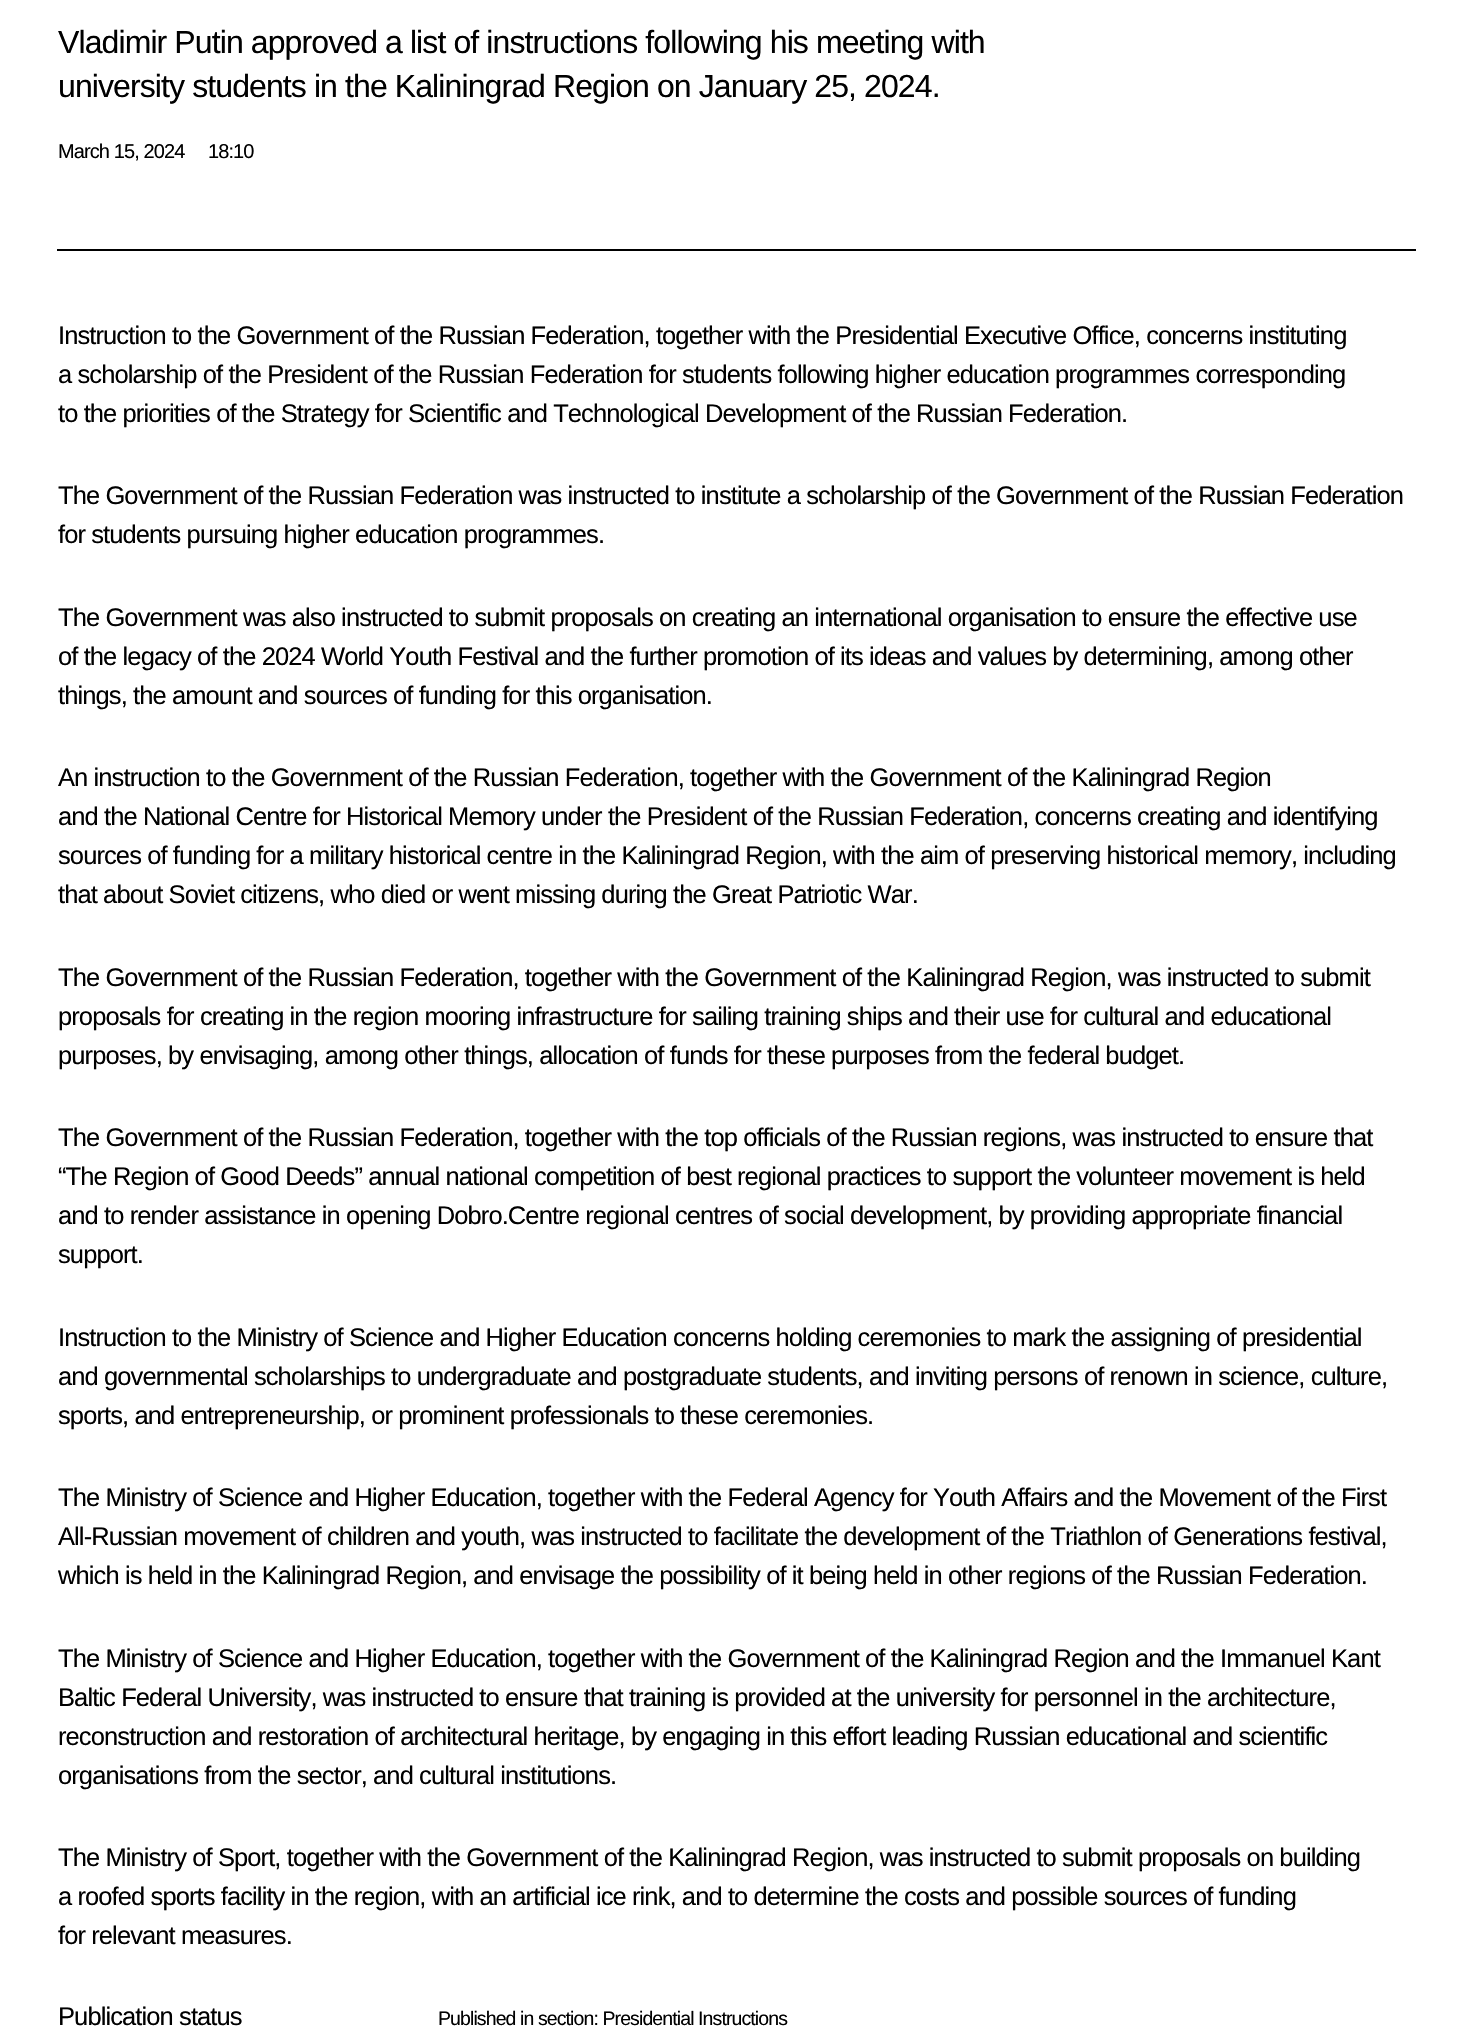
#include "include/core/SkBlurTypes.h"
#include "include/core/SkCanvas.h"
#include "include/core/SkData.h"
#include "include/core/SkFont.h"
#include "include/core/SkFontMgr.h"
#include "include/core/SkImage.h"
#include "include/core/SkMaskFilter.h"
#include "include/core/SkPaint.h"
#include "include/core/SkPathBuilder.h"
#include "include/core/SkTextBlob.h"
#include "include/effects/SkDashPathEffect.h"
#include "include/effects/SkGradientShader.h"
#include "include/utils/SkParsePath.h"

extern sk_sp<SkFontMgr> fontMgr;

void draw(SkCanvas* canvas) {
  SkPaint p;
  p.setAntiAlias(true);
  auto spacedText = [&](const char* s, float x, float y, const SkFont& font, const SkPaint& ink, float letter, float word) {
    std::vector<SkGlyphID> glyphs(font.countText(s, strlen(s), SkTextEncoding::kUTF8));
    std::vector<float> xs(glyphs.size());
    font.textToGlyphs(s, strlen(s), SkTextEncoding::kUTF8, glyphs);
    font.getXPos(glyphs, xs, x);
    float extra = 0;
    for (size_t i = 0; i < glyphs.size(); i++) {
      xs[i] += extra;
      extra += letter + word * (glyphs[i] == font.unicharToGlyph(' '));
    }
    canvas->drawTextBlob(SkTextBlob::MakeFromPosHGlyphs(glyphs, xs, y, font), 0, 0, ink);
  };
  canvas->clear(SK_ColorWHITE);
  p.setColor(SK_ColorBLACK);
  canvas->drawRect(SkRect::MakeLTRB(57, 249, 1416, 251), p);
  SkFont font1(fontMgr->matchFamilyStyle("Liberation Sans", SkFontStyle::Normal()), 32);
  font1.setSubpixel(true);
  spacedText("Vladimir Putin approved a list of instructions following his meeting with", 58, 53, font1, p, -0.9f, 0);
  spacedText("university students in the Kaliningrad Region on January 25, 2024.", 58, 97, font1, p, -0.9f, 0);
  SkFont font2(fontMgr->matchFamilyStyle("Liberation Sans", SkFontStyle::Normal()), 20);
  font2.setSubpixel(true);
  spacedText("March 15, 2024", 58, 158, font2, p, -0.9f, 0);
  spacedText("18:10", 208, 158, font2, p, -0.9f, 0);
  SkFont font3(fontMgr->matchFamilyStyle("Liberation Sans", SkFontStyle::Normal()), 25.5f);
  font3.setSubpixel(true);
  spacedText("Instruction to the Government of the Russian Federation, together with the Presidential Executive Office, concerns instituting", 58, 344, font3, p, -0.9f, 0);
  spacedText("a scholarship of the President of the Russian Federation for students following higher education programmes corresponding", 58, 383, font3, p, -0.9f, 0);
  spacedText("to the priorities of the Strategy for Scientific and Technological Development of the Russian Federation.", 58, 422, font3, p, -0.9f, 0);
  spacedText("The Government of the Russian Federation was instructed to institute a scholarship of the Government of the Russian Federation", 58, 504, font3, p, -0.9f, 0);
  spacedText("for students pursuing higher education programmes.", 58, 543, font3, p, -0.9f, 0);
  spacedText("The Government was also instructed to submit proposals on creating an international organisation to ensure the effective use", 58, 626, font3, p, -0.9f, 0);
  spacedText("of the legacy of the 2024 World Youth Festival and the further promotion of its ideas and values by determining, among other", 58, 665, font3, p, -0.9f, 0);
  spacedText("things, the amount and sources of funding for this organisation.", 58, 704, font3, p, -0.9f, 0);
  spacedText("An instruction to the Government of the Russian Federation, together with the Government of the Kaliningrad Region", 58, 786, font3, p, -0.9f, 0);
  spacedText("and the National Centre for Historical Memory under the President of the Russian Federation, concerns creating and identifying", 58, 825, font3, p, -0.9f, 0);
  spacedText("sources of funding for a military historical centre in the Kaliningrad Region, with the aim of preserving historical memory, including", 58, 864, font3, p, -0.9f, 0);
  spacedText("that about Soviet citizens, who died or went missing during the Great Patriotic War.", 58, 903, font3, p, -0.9f, 0);
  spacedText("The Government of the Russian Federation, together with the Government of the Kaliningrad Region, was instructed to submit", 58, 986, font3, p, -0.9f, 0);
  spacedText("proposals for creating in the region mooring infrastructure for sailing training ships and their use for cultural and educational", 58, 1025, font3, p, -0.9f, 0);
  spacedText("purposes, by envisaging, among other things, allocation of funds for these purposes from the federal budget.", 58, 1064, font3, p, -0.9f, 0);
  spacedText("The Government of the Russian Federation, together with the top officials of the Russian regions, was instructed to ensure that", 58, 1146, font3, p, -0.9f, 0);
  spacedText("“The Region of Good Deeds” annual national competition of best regional practices to support the volunteer movement is held", 58, 1185, font3, p, -0.9f, 0);
  spacedText("and to render assistance in opening Dobro.Centre regional centres of social development, by providing appropriate financial", 58, 1224, font3, p, -0.9f, 0);
  spacedText("support.", 58, 1263, font3, p, -0.9f, 0);
  spacedText("Instruction to the Ministry of Science and Higher Education concerns holding ceremonies to mark the assigning of presidential", 58, 1346, font3, p, -0.9f, 0);
  spacedText("and governmental scholarships to undergraduate and postgraduate students, and inviting persons of renown in science, culture,", 58, 1385, font3, p, -0.9f, 0);
  spacedText("sports, and entrepreneurship, or prominent professionals to these ceremonies.", 58, 1424, font3, p, -0.9f, 0);
  spacedText("The Ministry of Science and Higher Education, together with the Federal Agency for Youth Affairs and the Movement of the First", 58, 1506, font3, p, -0.9f, 0);
  spacedText("All-Russian movement of children and youth, was instructed to facilitate the development of the Triathlon of Generations festival,", 58, 1545, font3, p, -0.9f, 0);
  spacedText("which is held in the Kaliningrad Region, and envisage the possibility of it being held in other regions of the Russian Federation.", 58, 1584, font3, p, -0.9f, 0);
  spacedText("The Ministry of Science and Higher Education, together with the Government of the Kaliningrad Region and the Immanuel Kant", 58, 1667, font3, p, -0.9f, 0);
  spacedText("Baltic Federal University, was instructed to ensure that training is provided at the university for personnel in the architecture,", 58, 1706, font3, p, -0.9f, 0);
  spacedText("reconstruction and restoration of architectural heritage, by engaging in this effort leading Russian educational and scientific", 58, 1745, font3, p, -0.9f, 0);
  spacedText("organisations from the sector, and cultural institutions.", 58, 1784, font3, p, -0.9f, 0);
  spacedText("The Ministry of Sport, together with the Government of the Kaliningrad Region, was instructed to submit proposals on building", 58, 1866, font3, p, -0.9f, 0);
  spacedText("a roofed sports facility in the region, with an artificial ice rink, and to determine the costs and possible sources of funding", 58, 1905, font3, p, -0.9f, 0);
  spacedText("for relevant measures.", 58, 1944, font3, p, -0.9f, 0);
  spacedText("Publication status", 58, 2025, font3, p, -0.9f, 0);
  SkFont font4(fontMgr->matchFamilyStyle("Liberation Sans", SkFontStyle::Normal()), 19.5f);
  font4.setSubpixel(true);
  spacedText("Published in section: Presidential Instructions", 438, 2025, font4, p, -0.9f, 0);
}
